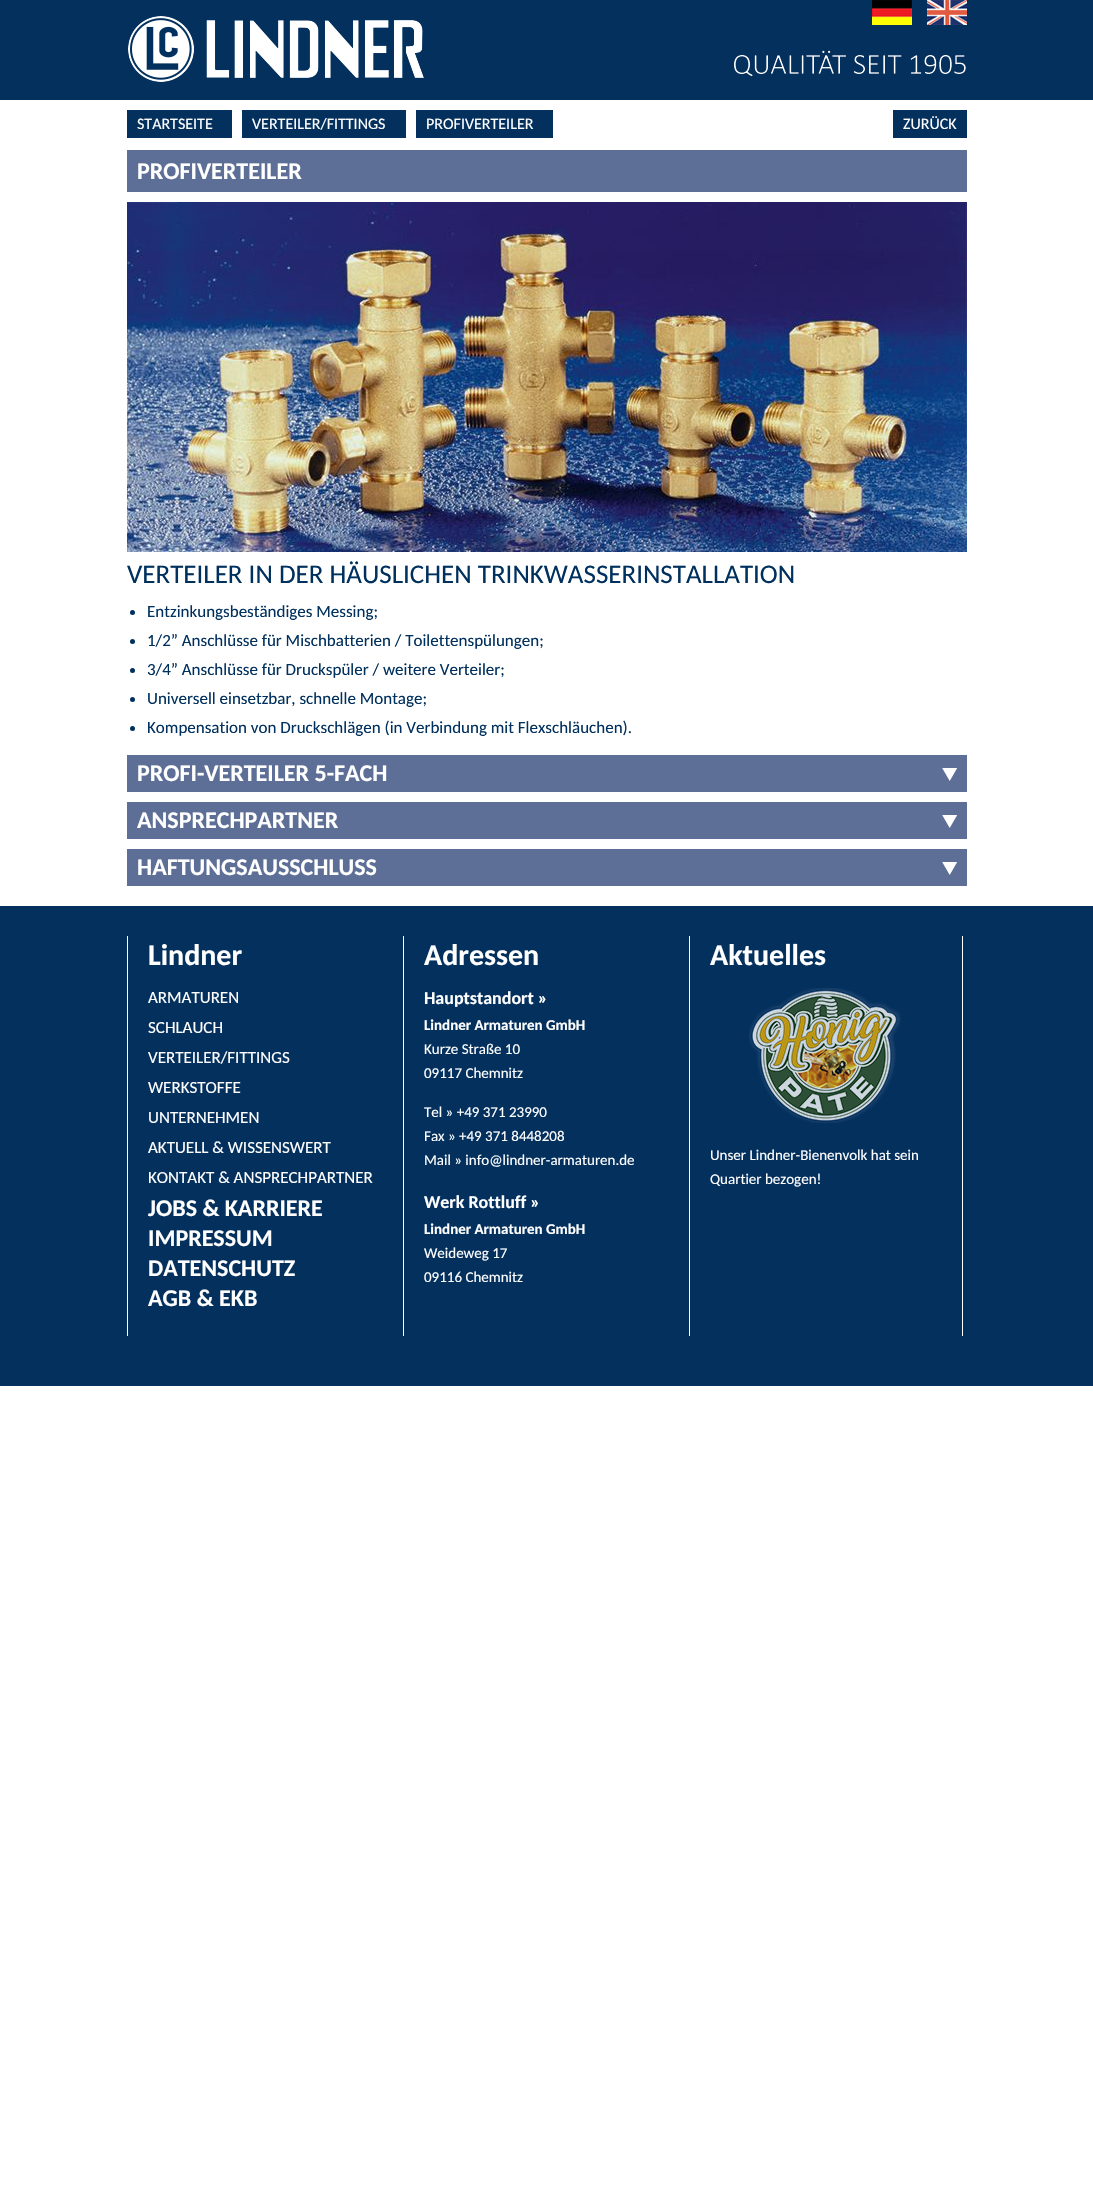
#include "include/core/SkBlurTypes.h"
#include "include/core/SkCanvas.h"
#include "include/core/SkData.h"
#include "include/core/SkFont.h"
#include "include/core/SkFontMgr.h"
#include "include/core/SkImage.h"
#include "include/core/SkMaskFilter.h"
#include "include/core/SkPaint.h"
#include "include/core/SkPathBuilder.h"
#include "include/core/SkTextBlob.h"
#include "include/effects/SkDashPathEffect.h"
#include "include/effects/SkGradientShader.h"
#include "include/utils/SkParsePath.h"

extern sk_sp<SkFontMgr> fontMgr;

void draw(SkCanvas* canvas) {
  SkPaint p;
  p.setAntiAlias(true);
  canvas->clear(SK_ColorWHITE);
  p.setColor(SkColorSetRGB(4, 48, 94));
  canvas->drawRect(SkRect::MakeLTRB(0, 0, 1093, 100), p);
  canvas->drawImageRect(SkImages::DeferredFromEncodedData(SkData::MakeFromFileName("images/1.png")), SkRect::MakeLTRB(872, 0, 912, 25), SkSamplingOptions());
  canvas->drawImageRect(SkImages::DeferredFromEncodedData(SkData::MakeFromFileName("images/2.png")), SkRect::MakeLTRB(927, 0, 967, 25), SkSamplingOptions());
  canvas->drawImageRect(SkImages::DeferredFromEncodedData(SkData::MakeFromFileName("images/3.png")), SkRect::MakeLTRB(128, 16, 424, 82), SkSamplingOptions());
  canvas->drawImageRect(SkImages::DeferredFromEncodedData(SkData::MakeFromFileName("images/4.png")), SkRect::MakeLTRB(734, 50, 966, 76), SkSamplingOptions());
  canvas->drawRect(SkRect::MakeLTRB(127, 110, 232, 138), p);
  canvas->drawRect(SkRect::MakeLTRB(242, 110, 406, 138), p);
  canvas->drawRect(SkRect::MakeLTRB(416, 110, 553, 138), p);
  canvas->drawRect(SkRect::MakeLTRB(893, 110, 967, 138), p);
  p.setColor(SkColorSetRGB(93, 111, 150));
  canvas->drawRect(SkRect::MakeLTRB(127, 150, 967, 192), p);
  canvas->drawImageRect(SkImages::DeferredFromEncodedData(SkData::MakeFromFileName("images/5.png")), SkRect::MakeLTRB(127, 202, 967, 552), SkSamplingOptions());
  p.setColor(SkColorSetRGB(0, 48, 93));
  canvas->drawCircle(132.5f, 612.5f, 2.5f, p);
  canvas->drawCircle(132.5f, 641.5f, 2.5f, p);
  canvas->drawCircle(132.5f, 670.5f, 2.5f, p);
  canvas->drawCircle(132.5f, 699.5f, 2.5f, p);
  canvas->drawCircle(132.5f, 728.5f, 2.5f, p);
  p.setColor(SkColorSetRGB(93, 111, 150));
  canvas->drawRect(SkRect::MakeLTRB(127, 755, 967, 792), p);
  canvas->drawImageRect(SkImages::DeferredFromEncodedData(SkData::MakeFromFileName("images/6.png")), SkRect::MakeLTRB(942, 768, 957, 781), SkSamplingOptions());
  canvas->drawRect(SkRect::MakeLTRB(127, 802, 967, 839), p);
  canvas->drawImageRect(SkImages::DeferredFromEncodedData(SkData::MakeFromFileName("images/6.png")), SkRect::MakeLTRB(942, 815, 957, 828), SkSamplingOptions());
  canvas->drawRect(SkRect::MakeLTRB(127, 849, 967, 886), p);
  canvas->drawImageRect(SkImages::DeferredFromEncodedData(SkData::MakeFromFileName("images/6.png")), SkRect::MakeLTRB(942, 862, 957, 875), SkSamplingOptions());
  p.setColor(SkColorSetRGB(4, 48, 94));
  canvas->drawRect(SkRect::MakeLTRB(0, 906, 1093, 1386), p);
  p.setColor(SK_ColorWHITE);
  canvas->drawRect(SkRect::MakeLTRB(403, 936, 404, 1336), p);
  canvas->drawRect(SkRect::MakeLTRB(127, 936, 128, 1336), p);
  canvas->drawRect(SkRect::MakeLTRB(689, 936, 690, 1336), p);
  canvas->drawRect(SkRect::MakeLTRB(962, 936, 963, 1336), p);
  canvas->drawImageRect(SkImages::DeferredFromEncodedData(SkData::MakeFromFileName("images/7.png")), SkRect::MakeLTRB(749, 988, 901, 1123), SkSamplingOptions());
  SkFont font1(fontMgr->matchFamilyStyle("Carlito", SkFontStyle::Normal()), 16);
  font1.setSubpixel(true);
  canvas->drawString("STARTSEITE", 137, 129, font1, p);
  canvas->drawString("VERTEILER/FITTINGS", 252, 129, font1, p);
  canvas->drawString("PROFIVERTEILER", 426, 129, font1, p);
  canvas->drawString("ZURÜCK", 903, 129, font1, p);
  SkFont font2(fontMgr->matchFamilyStyle("Carlito", SkFontStyle::Bold()), 24);
  font2.setSubpixel(true);
  canvas->drawString("PROFIVERTEILER", 137, 179, font2, p);
  SkFont font3(fontMgr->matchFamilyStyle("Carlito", SkFontStyle::Normal()), 27);
  font3.setSubpixel(true);
  p.setColor(SkColorSetRGB(0, 48, 93));
  canvas->drawString("VERTEILER IN DER HÄUSLICHEN TRINKWASSERINSTALLATION", 127, 583, font3, p);
  SkFont font4(fontMgr->matchFamilyStyle("Carlito", SkFontStyle::Normal()), 17);
  font4.setSubpixel(true);
  canvas->drawString("Entzinkungsbeständiges Messing;", 147, 617, font4, p);
  canvas->drawString("1/2” Anschlüsse für Mischbatterien / Toilettenspülungen;", 147, 646, font4, p);
  canvas->drawString("3/4” Anschlüsse für Druckspüler / weitere Verteiler;", 147, 675, font4, p);
  canvas->drawString("Universell einsetzbar, schnelle Montage;", 147, 704, font4, p);
  canvas->drawString("Kompensation von Druckschlägen (in Verbindung mit Flexschläuchen).", 147, 733, font4, p);
  p.setColor(SK_ColorWHITE);
  canvas->drawString("PROFI-VERTEILER 5-FACH", 137, 781, font2, p);
  canvas->drawString("ANSPRECHPARTNER", 137, 828, font2, p);
  canvas->drawString("HAFTUNGSAUSSCHLUSS", 137, 875, font2, p);
  SkFont font5(fontMgr->matchFamilyStyle("Carlito", SkFontStyle::Bold()), 30);
  font5.setSubpixel(true);
  canvas->drawString("Lindner", 148, 965, font5, p);
  canvas->drawString("ARMATUREN", 148, 1003, font4, p);
  canvas->drawString("SCHLAUCH", 148, 1033, font4, p);
  canvas->drawString("VERTEILER/FITTINGS", 148, 1063, font4, p);
  canvas->drawString("WERKSTOFFE", 148, 1093, font4, p);
  canvas->drawString("UNTERNEHMEN", 148, 1123, font4, p);
  canvas->drawString("AKTUELL & WISSENSWERT", 148, 1153, font4, p);
  canvas->drawString("KONTAKT & ANSPRECHPARTNER", 148, 1183, font4, p);
  canvas->drawString("JOBS & KARRIERE", 148, 1216, font2, p);
  canvas->drawString("IMPRESSUM", 148, 1246, font2, p);
  canvas->drawString("DATENSCHUTZ", 148, 1276, font2, p);
  canvas->drawString("AGB & EKB", 148, 1306, font2, p);
  canvas->drawString("Adressen", 424, 965, font5, p);
  SkFont font6(fontMgr->matchFamilyStyle("Carlito", SkFontStyle::Bold()), 18);
  font6.setSubpixel(true);
  canvas->drawString("Hauptstandort »", 424, 1004, font6, p);
  SkFont font7(fontMgr->matchFamilyStyle("Carlito", SkFontStyle::Bold()), 15);
  font7.setSubpixel(true);
  canvas->drawString("Lindner Armaturen GmbH", 424, 1030, font7, p);
  SkFont font8(fontMgr->matchFamilyStyle("Carlito", SkFontStyle::Normal()), 15);
  font8.setSubpixel(true);
  canvas->drawString("Kurze Straße 10", 424, 1054, font8, p);
  canvas->drawString("09117 Chemnitz", 424, 1078, font8, p);
  canvas->drawString("Tel » +49 371 23990", 424, 1117, font8, p);
  canvas->drawString("Fax » +49 371 8448208", 424, 1141, font8, p);
  canvas->drawString("Mail » info@lindner-armaturen.de", 424, 1165, font8, p);
  canvas->drawString("Werk Rottluff »", 424, 1208, font6, p);
  canvas->drawString("Lindner Armaturen GmbH", 424, 1234, font7, p);
  canvas->drawString("Weideweg 17", 424, 1258, font8, p);
  canvas->drawString("09116 Chemnitz", 424, 1282, font8, p);
  canvas->drawString("Aktuelles", 710, 965, font5, p);
  canvas->drawString("Unser Lindner-Bienenvolk hat sein", 710, 1160, font8, p);
  canvas->drawString("Quartier bezogen!", 710, 1184, font8, p);
}
